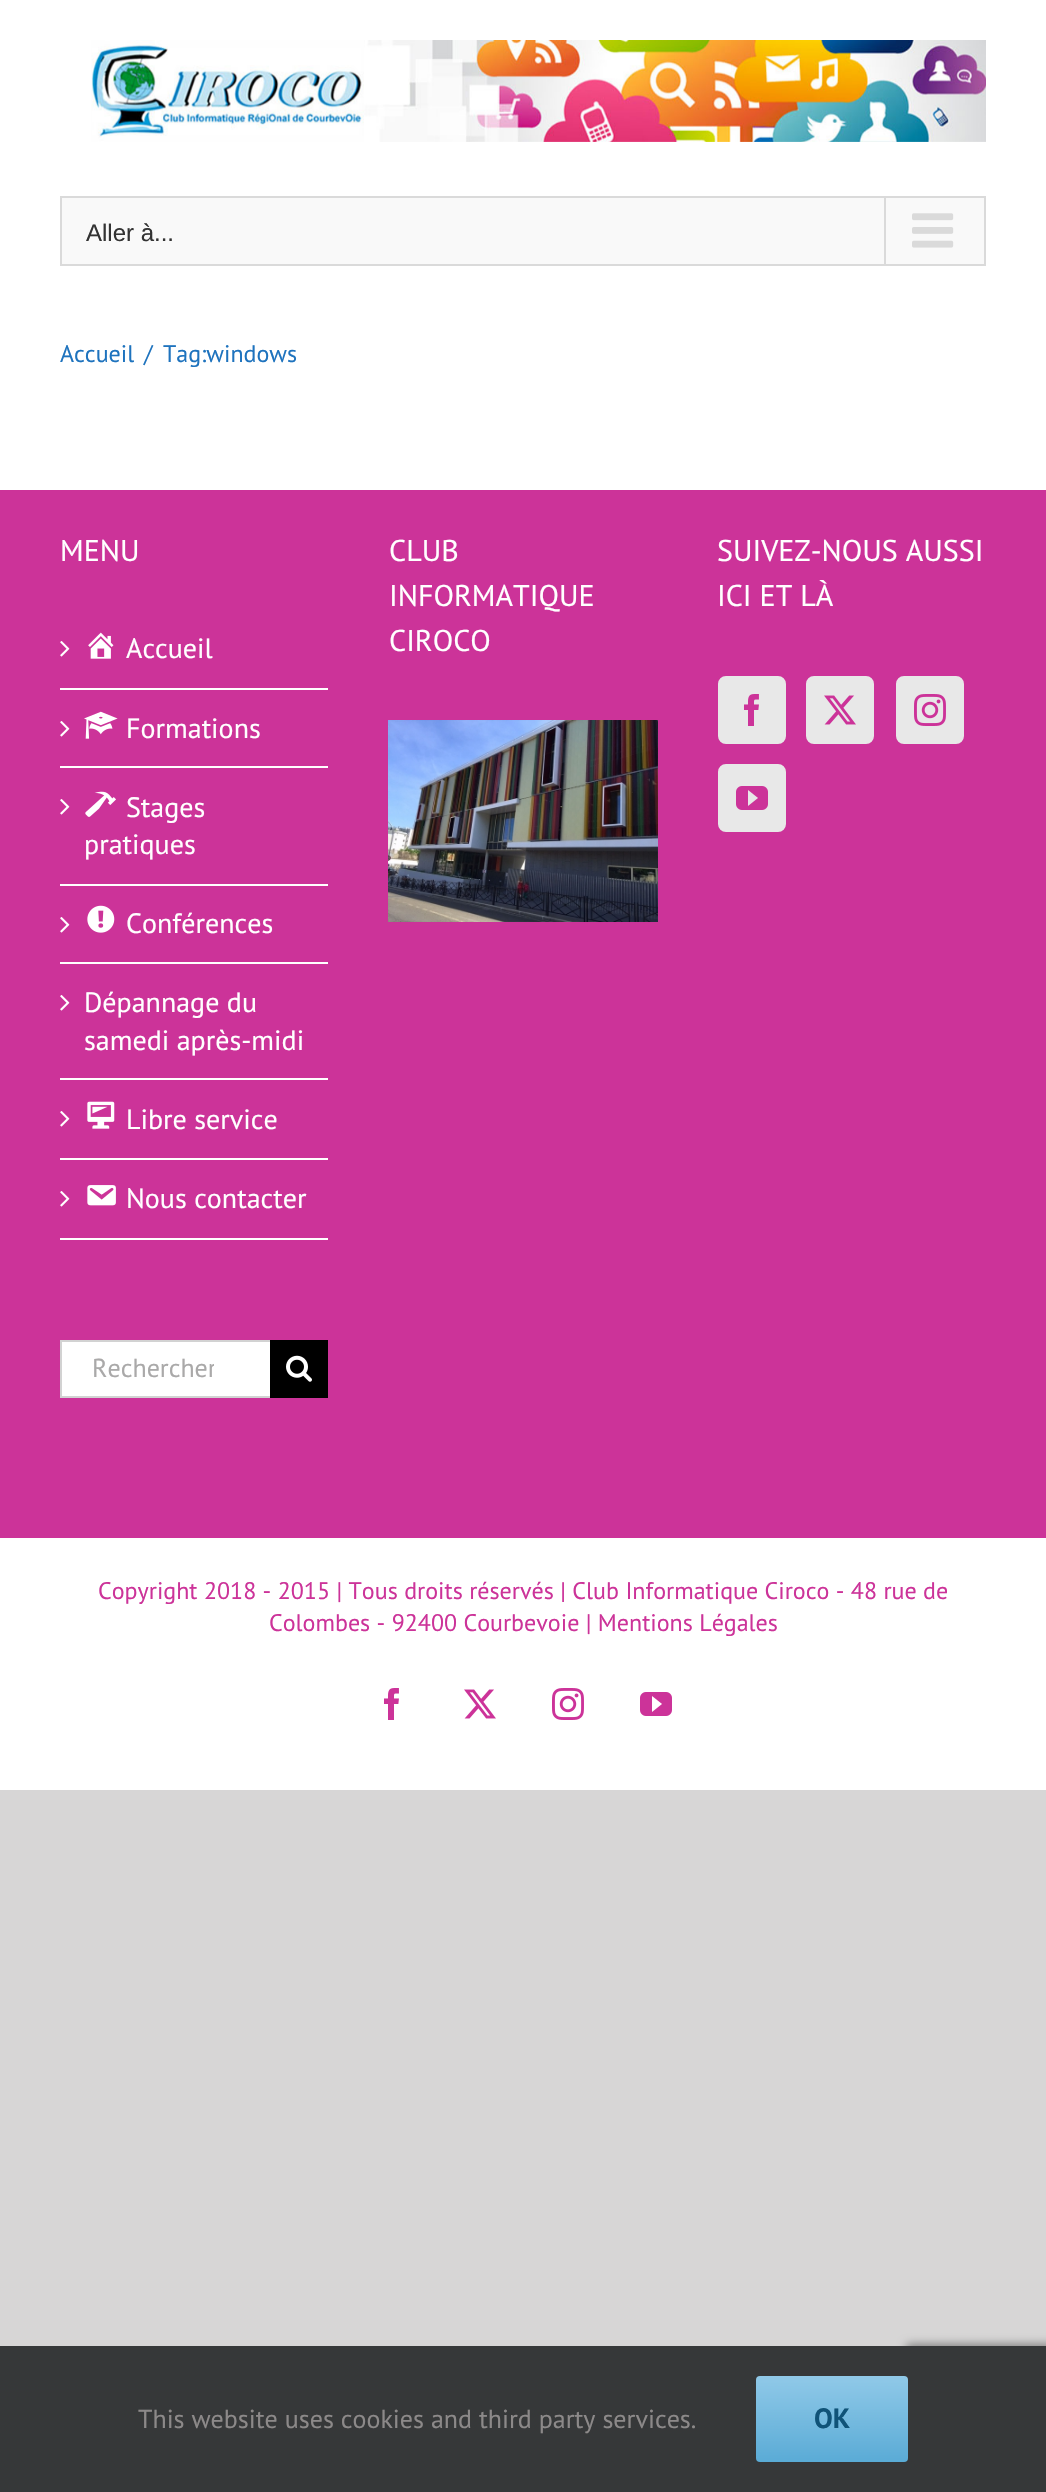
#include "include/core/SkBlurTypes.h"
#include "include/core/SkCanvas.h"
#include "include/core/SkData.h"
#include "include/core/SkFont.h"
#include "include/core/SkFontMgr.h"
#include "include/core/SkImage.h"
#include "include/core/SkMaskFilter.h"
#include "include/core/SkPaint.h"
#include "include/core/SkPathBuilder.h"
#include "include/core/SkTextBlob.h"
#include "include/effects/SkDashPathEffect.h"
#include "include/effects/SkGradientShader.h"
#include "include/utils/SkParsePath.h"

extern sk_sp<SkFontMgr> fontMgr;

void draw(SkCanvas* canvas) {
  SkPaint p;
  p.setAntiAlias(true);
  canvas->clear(SkColorSetRGB(215, 214, 214));
  p.setColor(SK_ColorWHITE);
  canvas->drawRect(SkRect::MakeLTRB(0, 0, 1046, 490), p);
  canvas->drawImageRect(SkImages::DeferredFromEncodedData(SkData::MakeFromFileName("images/1.png")), SkRect::MakeLTRB(91, 40, 986, 142), SkSamplingOptions());
  p.setColor(SkColorSetRGB(249, 249, 249));
  canvas->drawRect(SkRect::MakeLTRB(61, 197, 985, 265), p);
  p.setStyle(SkPaint::kStroke_Style);
  p.setStrokeWidth(2);
  p.setColor(SkColorSetRGB(218, 218, 218));
  canvas->drawRect(SkRect::MakeLTRB(61, 197, 985, 265), p);
  p.setStyle(SkPaint::kFill_Style);
  canvas->drawRect(SkRect::MakeLTRB(884, 198, 886, 264), p);
  canvas->drawImageRect(SkImages::DeferredFromEncodedData(SkData::MakeFromFileName("images/2.png")), SkRect::MakeLTRB(912, 213, 954, 248), SkSamplingOptions());
  p.setColor(SkColorSetRGB(204, 51, 153));
  canvas->drawRect(SkRect::MakeLTRB(0, 490, 1046, 1538), p);
  p.setColor(SK_ColorWHITE);
  canvas->drawRect(SkRect::MakeLTRB(60, 688, 328, 690), p);
  canvas->drawImageRect(SkImages::DeferredFromEncodedData(SkData::MakeFromFileName("images/3.png")), SkRect::MakeLTRB(60, 641, 70, 657), SkSamplingOptions());
  canvas->drawImageRect(SkImages::DeferredFromEncodedData(SkData::MakeFromFileName("images/4.png")), SkRect::MakeLTRB(88, 632, 114, 659), SkSamplingOptions());
  canvas->drawRect(SkRect::MakeLTRB(60, 766, 328, 768), p);
  canvas->drawImageRect(SkImages::DeferredFromEncodedData(SkData::MakeFromFileName("images/3.png")), SkRect::MakeLTRB(60, 721, 70, 737), SkSamplingOptions());
  canvas->drawImageRect(SkImages::DeferredFromEncodedData(SkData::MakeFromFileName("images/5.png")), SkRect::MakeLTRB(84, 711, 118, 739), SkSamplingOptions());
  canvas->drawRect(SkRect::MakeLTRB(60, 884, 328, 886), p);
  canvas->drawImageRect(SkImages::DeferredFromEncodedData(SkData::MakeFromFileName("images/3.png")), SkRect::MakeLTRB(60, 799, 70, 815), SkSamplingOptions());
  canvas->drawImageRect(SkImages::DeferredFromEncodedData(SkData::MakeFromFileName("images/6.png")), SkRect::MakeLTRB(85, 791, 116, 817), SkSamplingOptions());
  canvas->drawRect(SkRect::MakeLTRB(60, 962, 328, 964), p);
  canvas->drawImageRect(SkImages::DeferredFromEncodedData(SkData::MakeFromFileName("images/3.png")), SkRect::MakeLTRB(60, 917, 70, 933), SkSamplingOptions());
  canvas->drawImageRect(SkImages::DeferredFromEncodedData(SkData::MakeFromFileName("images/7.png")), SkRect::MakeLTRB(87, 905, 115, 933), SkSamplingOptions());
  canvas->drawRect(SkRect::MakeLTRB(60, 1078, 328, 1080), p);
  canvas->drawImageRect(SkImages::DeferredFromEncodedData(SkData::MakeFromFileName("images/3.png")), SkRect::MakeLTRB(60, 995, 70, 1011), SkSamplingOptions());
  canvas->drawRect(SkRect::MakeLTRB(60, 1158, 328, 1160), p);
  canvas->drawImageRect(SkImages::DeferredFromEncodedData(SkData::MakeFromFileName("images/3.png")), SkRect::MakeLTRB(60, 1111, 70, 1127), SkSamplingOptions());
  canvas->drawImageRect(SkImages::DeferredFromEncodedData(SkData::MakeFromFileName("images/8.png")), SkRect::MakeLTRB(87, 1101, 115, 1129), SkSamplingOptions());
  canvas->drawRect(SkRect::MakeLTRB(60, 1238, 328, 1240), p);
  canvas->drawImageRect(SkImages::DeferredFromEncodedData(SkData::MakeFromFileName("images/3.png")), SkRect::MakeLTRB(60, 1191, 70, 1207), SkSamplingOptions());
  canvas->drawImageRect(SkImages::DeferredFromEncodedData(SkData::MakeFromFileName("images/9.png")), SkRect::MakeLTRB(87, 1185, 116, 1206), SkSamplingOptions());
  canvas->drawRect(SkRect::MakeLTRB(62, 1342, 270, 1396), p);
  p.setColor(SkColorSetRGB(210, 210, 210));
  canvas->drawRect(SkRect::MakeLTRB(60, 1340, 270, 1342), p);
  canvas->drawRect(SkRect::MakeLTRB(60, 1396, 270, 1398), p);
  canvas->drawRect(SkRect::MakeLTRB(60, 1340, 62, 1398), p);
  p.setColor(SK_ColorBLACK);
  canvas->drawRect(SkRect::MakeLTRB(270, 1340, 328, 1398), p);
  canvas->drawImageRect(SkImages::DeferredFromEncodedData(SkData::MakeFromFileName("images/10.png")), SkRect::MakeLTRB(286, 1355, 312, 1382), SkSamplingOptions());
  canvas->drawImageRect(SkImages::DeferredFromEncodedData(SkData::MakeFromFileName("images/11.png")), SkRect::MakeLTRB(388, 720, 658, 922), SkSamplingOptions());
  p.setColor(SkColorSetRGB(232, 232, 232));
  canvas->drawRoundRect(SkRect::MakeLTRB(719, 677, 785, 743), 7, 7, p);
  p.setStyle(SkPaint::kStroke_Style);
  canvas->drawRoundRect(SkRect::MakeLTRB(719, 677, 785, 743), 7, 7, p);
  canvas->drawImageRect(SkImages::DeferredFromEncodedData(SkData::MakeFromFileName("images/12.png")), SkRect::MakeLTRB(744, 694, 759, 726), SkSamplingOptions());
  p.setStyle(SkPaint::kFill_Style);
  canvas->drawRoundRect(SkRect::MakeLTRB(807, 677, 873, 743), 7, 7, p);
  p.setStyle(SkPaint::kStroke_Style);
  canvas->drawRoundRect(SkRect::MakeLTRB(807, 677, 873, 743), 7, 7, p);
  canvas->drawImageRect(SkImages::DeferredFromEncodedData(SkData::MakeFromFileName("images/13.png")), SkRect::MakeLTRB(824, 695, 856, 725), SkSamplingOptions());
  p.setStyle(SkPaint::kFill_Style);
  canvas->drawRoundRect(SkRect::MakeLTRB(897, 677, 963, 743), 7, 7, p);
  p.setStyle(SkPaint::kStroke_Style);
  canvas->drawRoundRect(SkRect::MakeLTRB(897, 677, 963, 743), 7, 7, p);
  canvas->drawImageRect(SkImages::DeferredFromEncodedData(SkData::MakeFromFileName("images/14.png")), SkRect::MakeLTRB(914, 694, 946, 726), SkSamplingOptions());
  p.setStyle(SkPaint::kFill_Style);
  canvas->drawRoundRect(SkRect::MakeLTRB(719, 765, 785, 831), 7, 7, p);
  p.setStyle(SkPaint::kStroke_Style);
  canvas->drawRoundRect(SkRect::MakeLTRB(719, 765, 785, 831), 7, 7, p);
  canvas->drawImageRect(SkImages::DeferredFromEncodedData(SkData::MakeFromFileName("images/15.png")), SkRect::MakeLTRB(736, 786, 768, 810), SkSamplingOptions());
  p.setStyle(SkPaint::kFill_Style);
  p.setColor(SK_ColorWHITE);
  canvas->drawRect(SkRect::MakeLTRB(0, 1538, 1046, 1790), p);
  canvas->drawImageRect(SkImages::DeferredFromEncodedData(SkData::MakeFromFileName("images/16.png")), SkRect::MakeLTRB(384, 1688, 399, 1720), SkSamplingOptions());
  canvas->drawImageRect(SkImages::DeferredFromEncodedData(SkData::MakeFromFileName("images/17.png")), SkRect::MakeLTRB(464, 1689, 496, 1719), SkSamplingOptions());
  canvas->drawImageRect(SkImages::DeferredFromEncodedData(SkData::MakeFromFileName("images/18.png")), SkRect::MakeLTRB(552, 1688, 584, 1720), SkSamplingOptions());
  canvas->drawImageRect(SkImages::DeferredFromEncodedData(SkData::MakeFromFileName("images/19.png")), SkRect::MakeLTRB(640, 1692, 672, 1716), SkSamplingOptions());
  p.setColor(SkColorSetRGB(128, 128, 128));
  p.setMaskFilter(SkMaskFilter::MakeBlur(kNormal_SkBlurStyle, 5));
  canvas->drawRoundRect(SkRect::MakeLTRB(906, 2344, 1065, 2464), 4, 4, p);
  p.setMaskFilter(nullptr);
  p.setColor(SkColorSetRGB(54, 56, 57));
  canvas->drawRect(SkRect::MakeLTRB(0, 2346, 1046, 2492), p);
  {
    const SkColor colors[] = {SkColorSetRGB(144, 201, 232), SkColorSetRGB(90, 171, 214)};
    const float stops[] = {0, 1};
    const SkPoint ends[] = {{832, 2376}, {832, 2462}};
    p.setShader(SkGradientShader::MakeLinear(ends, colors, stops, 2, SkTileMode::kClamp));
    p.setAlpha(255);
  }
  canvas->drawRoundRect(SkRect::MakeLTRB(756, 2376, 908, 2462), 4, 4, p);
  SkFont font1(fontMgr->matchFamilyStyle("Liberation Sans", SkFontStyle::Normal()), 24);
  font1.setSubpixel(true);
  p.setShader(nullptr);
  p.setColor(SkColorSetRGB(51, 51, 51));
  canvas->drawString("Aller à...", 86, 241, font1, p);
  SkFont font2(fontMgr->matchFamilyStyle("PT Sans", SkFontStyle::Normal()), 24);
  font2.setSubpixel(true);
  p.setColor(SkColorSetRGB(30, 115, 190));
  canvas->drawString("Accueil", 60, 362, font2, p);
  canvas->drawString("/", 144, 362, font2, p);
  canvas->drawString("Tag:windows", 163, 362, font2, p);
  SkFont font3(fontMgr->matchFamilyStyle("PT Sans", SkFontStyle::Normal()), 30);
  font3.setSubpixel(true);
  p.setColor(SK_ColorWHITE);
  canvas->drawString("MENU", 60, 561, font3, p);
  SkFont font4(fontMgr->matchFamilyStyle("PT Sans", SkFontStyle::Normal()), 28);
  font4.setSubpixel(true);
  canvas->drawString("Accueil", 126, 658, font4, p);
  canvas->drawString("Formations", 126, 738, font4, p);
  canvas->drawString("Stages", 126, 817, font4, p);
  canvas->drawString("pratiques", 84, 854, font4, p);
  canvas->drawString("Conférences", 126, 933, font4, p);
  canvas->drawString("Dépannage du", 84, 1012, font4, p);
  canvas->drawString("samedi après-midi", 84, 1050, font4, p);
  canvas->drawString("Libre service", 126, 1129, font4, p);
  canvas->drawString("Nous contacter", 126, 1208, font4, p);
  canvas->save();
  canvas->clipRect(SkRect::MakeLTRB(92, 1352, 214, 1386));
  SkFont font5(fontMgr->matchFamilyStyle("PT Sans", SkFontStyle::Normal()), 26);
  font5.setSubpixel(true);
  p.setColor(SkColorSetRGB(170, 169, 169));
  canvas->drawString("Rechercher", 92, 1377, font5, p);
  canvas->restore();
  p.setColor(SK_ColorWHITE);
  canvas->drawString("CLUB", 389, 561, font3, p);
  canvas->drawString("INFORMATIQUE", 389, 606, font3, p);
  canvas->drawString("CIROCO", 389, 651, font3, p);
  canvas->drawString("SUIVEZ-NOUS AUSSI", 717, 561, font3, p);
  canvas->drawString("ICI ET LÀ", 717, 606, font3, p);
  p.setColor(SkColorSetRGB(204, 51, 153));
  canvas->drawString("Copyright 2018 - 2015 | Tous droits réservés | Club Informatique Ciroco - 48 rue de", 98, 1599, font2, p);
  canvas->drawString("Colombes - 92400 Courbevoie | Mentions Légales", 269, 1631, font2, p);
  p.setColor(SkColorSetRGB(140, 137, 137));
  canvas->drawString("This website uses cookies and third party services.", 138, 2428, font5, p);
  SkFont font6(fontMgr->matchFamilyStyle("PT Sans", SkFontStyle::Bold()), 28);
  font6.setSubpixel(true);
  p.setColor(SkColorSetRGB(16, 83, 120));
  canvas->drawString("OK", 814, 2428, font6, p);
}
